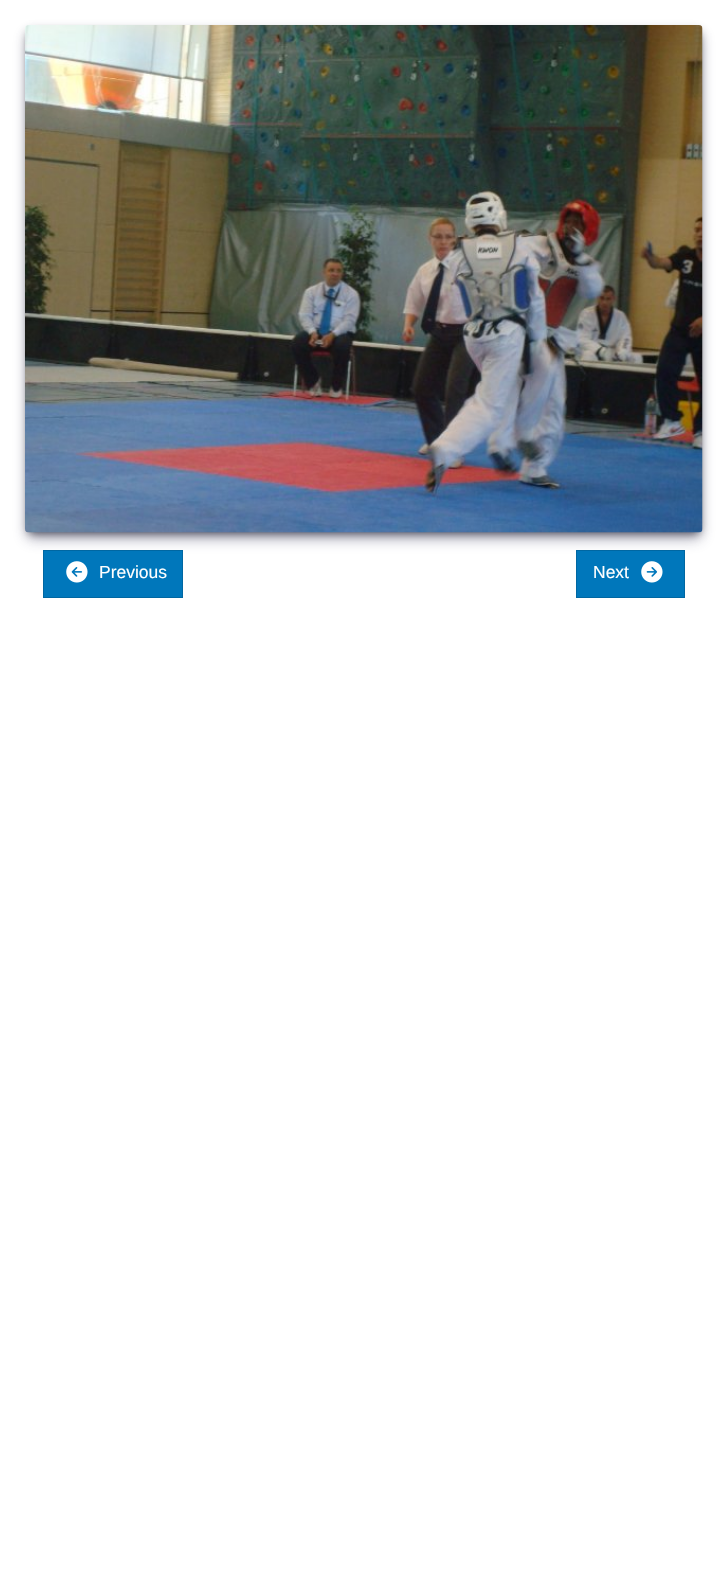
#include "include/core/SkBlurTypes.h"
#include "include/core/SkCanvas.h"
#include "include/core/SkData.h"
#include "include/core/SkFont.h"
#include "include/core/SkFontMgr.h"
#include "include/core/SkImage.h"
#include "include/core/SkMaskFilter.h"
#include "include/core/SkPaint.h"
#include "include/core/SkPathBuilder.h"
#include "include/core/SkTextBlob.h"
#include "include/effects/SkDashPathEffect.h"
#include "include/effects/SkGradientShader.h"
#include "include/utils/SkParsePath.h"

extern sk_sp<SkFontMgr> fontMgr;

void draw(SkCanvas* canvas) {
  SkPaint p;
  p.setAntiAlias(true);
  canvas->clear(SK_ColorWHITE);
  p.setColor(SkColorSetARGB(179, 0, 0, 0));
  p.setMaskFilter(SkMaskFilter::MakeBlur(kNormal_SkBlurStyle, 4.5f));
  canvas->drawRect(SkRect::MakeLTRB(29, 33, 699, 533), p);
  p.setMaskFilter(nullptr);
  p.setColor(SkColorSetARGB(102, 50, 50, 93));
  p.setMaskFilter(SkMaskFilter::MakeBlur(kNormal_SkBlurStyle, 7.5f));
  canvas->drawRoundRect(SkRect::MakeLTRB(28, 35, 700, 538), 1, 1, p);
  p.setMaskFilter(nullptr);
  canvas->drawImageRect(SkImages::DeferredFromEncodedData(SkData::MakeFromFileName("images/1.png")), SkRect::MakeLTRB(25, 25, 703, 533), SkSamplingOptions());
  p.setColor(SkColorSetRGB(0, 119, 187));
  canvas->drawRect(SkRect::MakeLTRB(43.5f, 550.5f, 182.5f, 597.5f), p);
  p.setStyle(SkPaint::kStroke_Style);
  p.setStrokeWidth(1);
  p.setColor(SkColorSetRGB(0, 103, 162));
  canvas->drawRect(SkRect::MakeLTRB(43.5f, 550.5f, 182.5f, 597.5f), p);
  canvas->drawImageRect(SkImages::DeferredFromEncodedData(SkData::MakeFromFileName("images/2.png")), SkRect::MakeLTRB(66, 561, 88, 583), SkSamplingOptions());
  p.setStyle(SkPaint::kFill_Style);
  p.setColor(SkColorSetRGB(0, 119, 187));
  canvas->drawRect(SkRect::MakeLTRB(576.5f, 550.5f, 684.5f, 597.5f), p);
  p.setStyle(SkPaint::kStroke_Style);
  p.setColor(SkColorSetRGB(0, 103, 162));
  canvas->drawRect(SkRect::MakeLTRB(576.5f, 550.5f, 684.5f, 597.5f), p);
  canvas->drawImageRect(SkImages::DeferredFromEncodedData(SkData::MakeFromFileName("images/3.png")), SkRect::MakeLTRB(641, 561, 663, 583), SkSamplingOptions());
  SkFont font1(fontMgr->matchFamilyStyle("Liberation Sans", SkFontStyle::Normal()), 17.5f);
  font1.setSubpixel(true);
  p.setStyle(SkPaint::kFill_Style);
  p.setColor(SK_ColorWHITE);
  canvas->drawString("Previous", 99, 578, font1, p);
  canvas->drawString("Next", 593, 578, font1, p);
}
